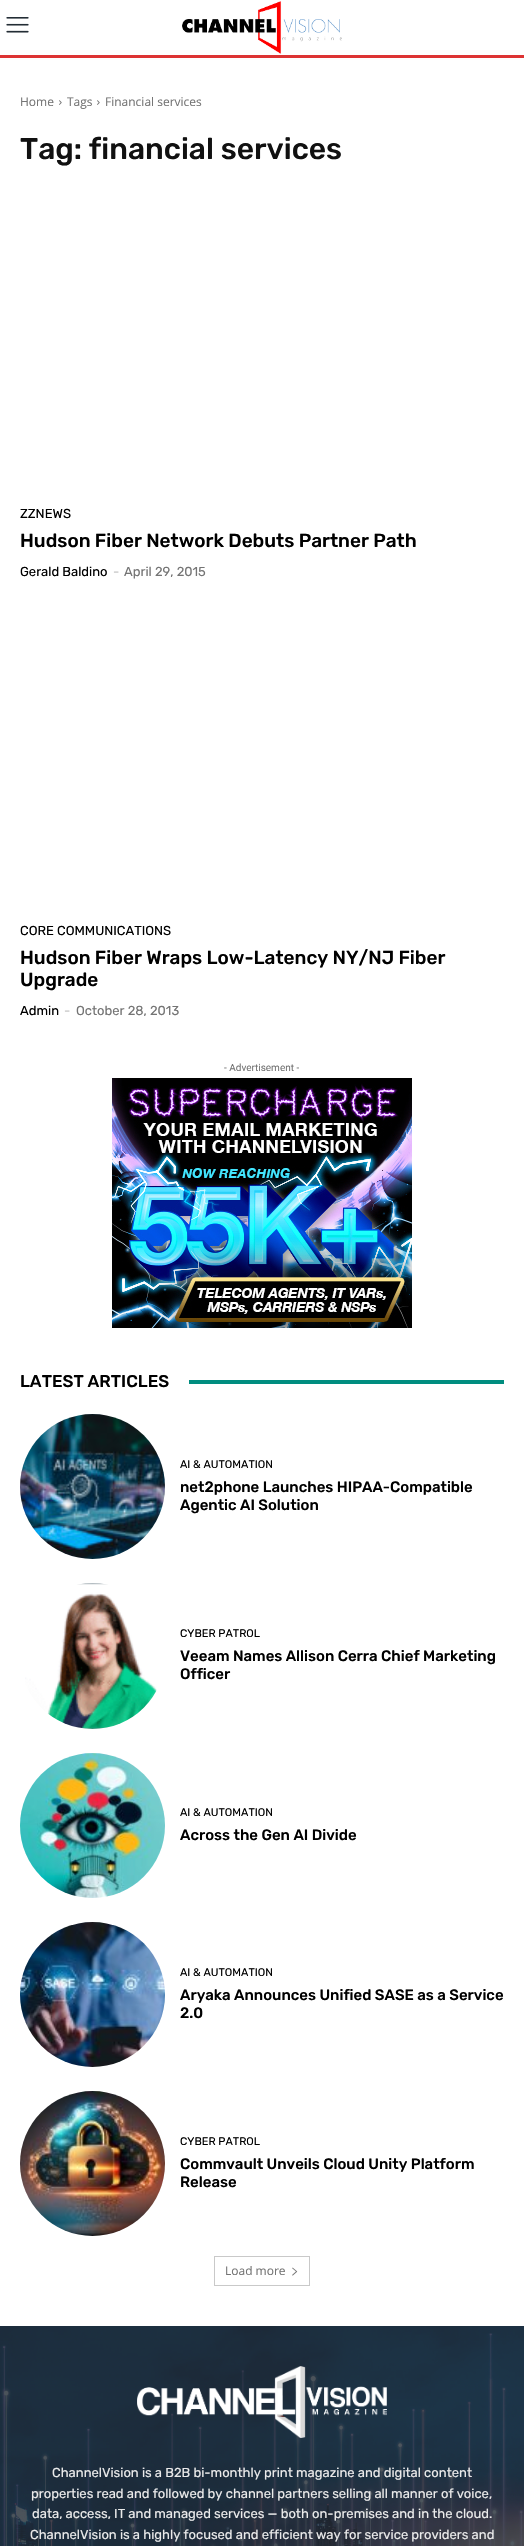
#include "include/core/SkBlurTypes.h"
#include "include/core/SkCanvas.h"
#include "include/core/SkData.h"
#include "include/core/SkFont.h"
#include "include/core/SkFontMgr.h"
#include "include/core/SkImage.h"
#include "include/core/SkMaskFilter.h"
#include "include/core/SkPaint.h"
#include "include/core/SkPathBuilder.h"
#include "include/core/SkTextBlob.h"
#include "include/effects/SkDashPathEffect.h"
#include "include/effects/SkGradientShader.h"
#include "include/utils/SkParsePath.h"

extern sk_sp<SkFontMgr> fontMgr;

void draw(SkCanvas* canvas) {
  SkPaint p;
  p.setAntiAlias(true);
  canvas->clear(SK_ColorWHITE);
  canvas->drawImageRect(SkImages::DeferredFromEncodedData(SkData::MakeFromFileName("images/1.png")), SkRect::MakeLTRB(6, 17, 29, 33), SkSamplingOptions());
  canvas->drawImageRect(SkImages::DeferredFromEncodedData(SkData::MakeFromFileName("images/2.png")), SkRect::MakeLTRB(182, 1, 342, 54), SkSamplingOptions());
  p.setColor(SkColorSetRGB(221, 51, 51));
  canvas->drawRect(SkRect::MakeLTRB(0, 55, 524, 58), p);
  canvas->drawImageRect(SkImages::DeferredFromEncodedData(SkData::MakeFromFileName("images/3.png")), SkRect::MakeLTRB(59, 100, 62, 105), SkSamplingOptions());
  canvas->drawImageRect(SkImages::DeferredFromEncodedData(SkData::MakeFromFileName("images/3.png")), SkRect::MakeLTRB(97, 100, 100, 105), SkSamplingOptions());
  canvas->drawImageRect(SkImages::DeferredFromEncodedData(SkData::MakeFromFileName("images/4.png")), SkRect::MakeLTRB(112, 1078, 412, 1328), SkSamplingOptions());
  p.setColor(SkColorSetRGB(0, 141, 127));
  canvas->drawRect(SkRect::MakeLTRB(189, 1380, 504, 1384), p);
  canvas->drawImageRect(SkImages::DeferredFromEncodedData(SkData::MakeFromFileName("images/5.png")), SkRect::MakeLTRB(20, 1414, 165, 1559), SkSamplingOptions());
  canvas->drawImageRect(SkImages::DeferredFromEncodedData(SkData::MakeFromFileName("images/6.png")), SkRect::MakeLTRB(25, 1583, 157, 1729), SkSamplingOptions());
  canvas->drawImageRect(SkImages::DeferredFromEncodedData(SkData::MakeFromFileName("images/7.png")), SkRect::MakeLTRB(20, 1753, 165, 1898), SkSamplingOptions());
  canvas->drawImageRect(SkImages::DeferredFromEncodedData(SkData::MakeFromFileName("images/8.png")), SkRect::MakeLTRB(20, 1922, 165, 2067), SkSamplingOptions());
  canvas->drawImageRect(SkImages::DeferredFromEncodedData(SkData::MakeFromFileName("images/9.png")), SkRect::MakeLTRB(20, 2091, 165, 2236), SkSamplingOptions());
  p.setStyle(SkPaint::kStroke_Style);
  p.setStrokeWidth(1);
  p.setColor(SkColorSetRGB(201, 201, 201));
  canvas->drawRect(SkRect::MakeLTRB(214.5f, 2256.5f, 309.5f, 2285.5f), p);
  canvas->drawImageRect(SkImages::DeferredFromEncodedData(SkData::MakeFromFileName("images/10.png")), SkRect::MakeLTRB(292, 2267, 298, 2276), SkSamplingOptions());
  p.setStyle(SkPaint::kFill_Style);
  p.setColor(SkColorSetRGB(35, 45, 53));
  canvas->drawRect(SkRect::MakeLTRB(0, 2326, 524, 2546), p);
  canvas->drawImageRect(SkImages::DeferredFromEncodedData(SkData::MakeFromFileName("images/11.png")), SkRect::MakeLTRB(0, 2326, 524, 2546), SkSamplingOptions());
  canvas->drawImageRect(SkImages::DeferredFromEncodedData(SkData::MakeFromFileName("images/12.png")), SkRect::MakeLTRB(137, 2366, 387, 2438), SkSamplingOptions());
  SkFont font1(fontMgr->matchFamilyStyle("Open Sans", SkFontStyle::Normal()), 12);
  font1.setSubpixel(true);
  p.setColor(SkColorSetRGB(116, 116, 116));
  canvas->drawString("Home", 20, 106, font1, p);
  canvas->drawString("Tags", 67, 106, font1, p);
  canvas->drawString("Financial services", 105, 106, font1, p);
  SkFont font2(fontMgr->matchFamilyStyle("Rubik", SkFontStyle(500, SkFontStyle::kNormal_Width, SkFontStyle::kUpright_Slant)), 30);
  font2.setSubpixel(true);
  p.setColor(SkColorSetRGB(17, 17, 17));
  canvas->drawString("Tag: financial services", 20, 159, font2, p);
  SkFont font3(fontMgr->matchFamilyStyle("Rubik", SkFontStyle::Normal()), 13);
  font3.setSubpixel(true);
  p.setColor(SK_ColorBLACK);
  canvas->drawString("ZZNEWS", 20, 518, font3, p);
  SkFont font4(fontMgr->matchFamilyStyle("Rubik", SkFontStyle(500, SkFontStyle::kNormal_Width, SkFontStyle::kUpright_Slant)), 19);
  font4.setSubpixel(true);
  canvas->drawString("Hudson Fiber Network Debuts Partner Path", 20, 547, font4, p);
  canvas->drawString("Gerald Baldino", 20, 576, font3, p);
  p.setColor(SkColorSetRGB(204, 204, 204));
  canvas->drawString("-", 113, 576, font3, p);
  p.setColor(SkColorSetRGB(116, 116, 116));
  canvas->drawString("April 29, 2015", 124, 576, font3, p);
  p.setColor(SK_ColorBLACK);
  canvas->drawString("CORE COMMUNICATIONS", 20, 935, font3, p);
  canvas->drawString("Hudson Fiber Wraps Low-Latency NY/NJ Fiber", 20, 964, font4, p);
  canvas->drawString("Upgrade", 20, 986, font4, p);
  canvas->drawString("Admin", 20, 1015, font3, p);
  p.setColor(SkColorSetRGB(204, 204, 204));
  canvas->drawString("-", 64, 1015, font3, p);
  p.setColor(SkColorSetRGB(116, 116, 116));
  canvas->drawString("October 28, 2013", 76, 1015, font3, p);
  SkFont font5(fontMgr->matchFamilyStyle("Roboto", SkFontStyle::Normal()), 10);
  font5.setSubpixel(true);
  canvas->drawString("- Advertisement -", 224, 1071, font5, p);
  SkFont font6(fontMgr->matchFamilyStyle("Rubik", SkFontStyle(500, SkFontStyle::kNormal_Width, SkFontStyle::kUpright_Slant)), 17);
  font6.setSubpixel(true);
  p.setColor(SK_ColorBLACK);
  canvas->drawString("LATEST ARTICLES", 20, 1387, font6, p);
  SkFont font7(fontMgr->matchFamilyStyle("Rubik", SkFontStyle::Normal()), 11);
  font7.setSubpixel(true);
  canvas->drawString("AI & AUTOMATION", 180, 1468, font7, p);
  SkFont font8(fontMgr->matchFamilyStyle("Rubik", SkFontStyle(500, SkFontStyle::kNormal_Width, SkFontStyle::kUpright_Slant)), 15);
  font8.setSubpixel(true);
  canvas->drawString("net2phone Launches HIPAA-Compatible", 180, 1492, font8, p);
  canvas->drawString("Agentic AI Solution", 180, 1510, font8, p);
  canvas->drawString("CYBER PATROL", 180, 1637, font7, p);
  canvas->drawString("Veeam Names Allison Cerra Chief Marketing", 180, 1661, font8, p);
  canvas->drawString("Officer", 180, 1679, font8, p);
  canvas->drawString("AI & AUTOMATION", 180, 1816, font7, p);
  canvas->drawString("Across the Gen AI Divide", 180, 1840, font8, p);
  canvas->drawString("AI & AUTOMATION", 180, 1976, font7, p);
  canvas->drawString("Aryaka Announces Unified SASE as a Service", 180, 2000, font8, p);
  canvas->drawString("2.0", 180, 2018, font8, p);
  canvas->drawString("CYBER PATROL", 180, 2145, font7, p);
  canvas->drawString("Commvault Unveils Cloud Unity Platform", 180, 2169, font8, p);
  canvas->drawString("Release", 180, 2187, font8, p);
  p.setColor(SkColorSetRGB(116, 116, 116));
  canvas->drawString("Load more", 225, 2275, font1, p);
  p.setColor(SkColorSetRGB(234, 234, 234));
  canvas->drawString("ChannelVision is a B2B bi-monthly print magazine and digital content", 52, 2477, font3, p);
  canvas->drawString("properties read and followed by channel partners selling all manner of voice,", 31, 2498, font3, p);
  canvas->drawString("data, access, IT and managed services — both on-premises and in the cloud.", 32, 2518, font3, p);
  canvas->drawString("ChannelVision is a highly focused and efficient way for service providers and", 30, 2539, font3, p);
}
